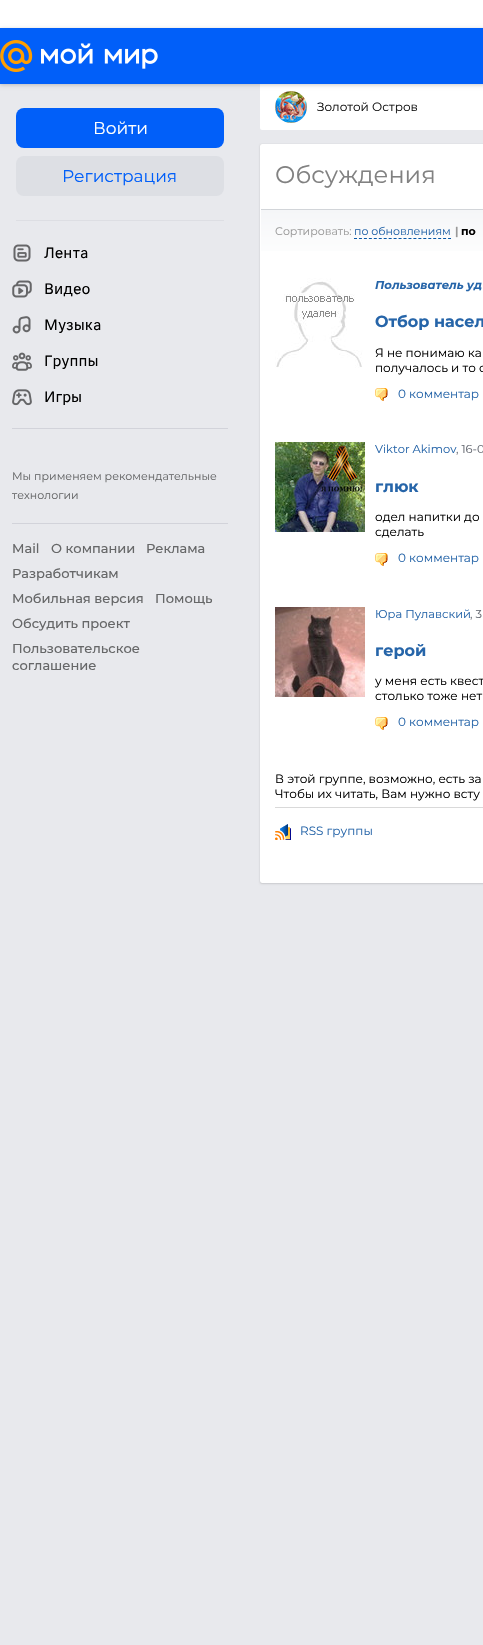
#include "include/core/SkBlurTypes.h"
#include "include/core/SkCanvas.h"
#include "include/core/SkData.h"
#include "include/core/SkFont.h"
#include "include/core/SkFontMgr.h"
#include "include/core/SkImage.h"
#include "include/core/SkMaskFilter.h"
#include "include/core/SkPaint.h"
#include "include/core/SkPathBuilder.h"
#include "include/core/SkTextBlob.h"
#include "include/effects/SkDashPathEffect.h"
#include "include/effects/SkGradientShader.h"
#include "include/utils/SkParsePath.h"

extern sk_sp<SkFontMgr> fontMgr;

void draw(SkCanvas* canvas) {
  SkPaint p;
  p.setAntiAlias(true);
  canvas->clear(SkColorSetRGB(232, 233, 237));
  p.setColor(SK_ColorWHITE);
  canvas->drawRect(SkRect::MakeLTRB(0, 0, 483, 28), p);
  canvas->drawPath(SkPathBuilder().moveTo(260, 84).lineTo(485, 84).lineTo(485, 128).cubicTo(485, 129, 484, 130, 483, 130).lineTo(262, 130).cubicTo(261, 130, 260, 129, 260, 128).close().detach(), p);
  p.setColor(SkColorSetRGB(240, 240, 240));
  canvas->drawCircle(291, 107, 16, p);
  canvas->drawImageRect(SkImages::DeferredFromEncodedData(SkData::MakeFromFileName("images/7.png")), SkRect::MakeLTRB(275, 91, 307, 123), SkSamplingOptions());
  p.setColor(SkColorSetARGB(51, 0, 0, 0));
  p.setMaskFilter(SkMaskFilter::MakeBlur(kNormal_SkBlurStyle, 2));
  canvas->drawRect(SkRect::MakeLTRB(0, 29, 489, 85), p);
  p.setMaskFilter(nullptr);
  p.setColor(SkColorSetRGB(1, 95, 249));
  canvas->drawRect(SkRect::MakeLTRB(0, 28, 483, 84), p);
  canvas->drawImageRect(SkImages::DeferredFromEncodedData(SkData::MakeFromFileName("images/1.png")), SkRect::MakeLTRB(0, 40, 158, 72), SkSamplingOptions());
  canvas->drawRoundRect(SkRect::MakeLTRB(16, 108, 224, 148), 8, 8, p);
  p.setColor(SkColorSetRGB(221, 223, 228));
  canvas->drawRoundRect(SkRect::MakeLTRB(16, 156, 224, 196), 8, 8, p);
  p.setColor(SkColorSetRGB(221, 222, 227));
  canvas->drawRect(SkRect::MakeLTRB(16, 220, 224, 221), p);
  canvas->drawImageRect(SkImages::DeferredFromEncodedData(SkData::MakeFromFileName("images/2.png")), SkRect::MakeLTRB(13, 244, 31, 262), SkSamplingOptions());
  canvas->drawImageRect(SkImages::DeferredFromEncodedData(SkData::MakeFromFileName("images/3.png")), SkRect::MakeLTRB(12, 280, 32, 298), SkSamplingOptions());
  canvas->drawImageRect(SkImages::DeferredFromEncodedData(SkData::MakeFromFileName("images/4.png")), SkRect::MakeLTRB(12, 316, 31, 334), SkSamplingOptions());
  canvas->drawImageRect(SkImages::DeferredFromEncodedData(SkData::MakeFromFileName("images/5.png")), SkRect::MakeLTRB(12, 352, 32, 371), SkSamplingOptions());
  canvas->drawImageRect(SkImages::DeferredFromEncodedData(SkData::MakeFromFileName("images/6.png")), SkRect::MakeLTRB(12, 389, 32, 406), SkSamplingOptions());
  p.setColor(SkColorSetRGB(210, 211, 218));
  canvas->drawRect(SkRect::MakeLTRB(12, 428, 228, 429), p);
  canvas->drawRect(SkRect::MakeLTRB(12, 523, 228, 524), p);
  p.setColor(SkColorSetARGB(31, 0, 0, 0));
  p.setMaskFilter(SkMaskFilter::MakeBlur(kNormal_SkBlurStyle, 1));
  canvas->drawRoundRect(SkRect::MakeLTRB(260, 145, 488, 884), 2, 2, p);
  p.setMaskFilter(nullptr);
  p.setColor(SkColorSetARGB(38, 0, 0, 0));
  p.setMaskFilter(SkMaskFilter::MakeBlur(kNormal_SkBlurStyle, 0.5f));
  canvas->drawRoundRect(SkRect::MakeLTRB(260, 144, 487, 883), 2, 2, p);
  p.setMaskFilter(nullptr);
  p.setColor(SK_ColorWHITE);
  canvas->drawRoundRect(SkRect::MakeLTRB(260, 144, 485, 883), 2, 2, p);
  {
    const SkColor colors[] = {SkColorSetRGB(245, 246, 248), SK_ColorWHITE};
    const float stops[] = {0, 1};
    const SkPoint ends[] = {{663, 210}, {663, 265}};
    p.setShader(SkGradientShader::MakeLinear(ends, colors, stops, 2, SkTileMode::kClamp));
    p.setAlpha(255);
  }
  canvas->drawRect(SkRect::MakeLTRB(261, 210, 483, 251), p);
  p.setShader(nullptr);
  p.setColor(SkColorSetRGB(210, 213, 217));
  canvas->drawRect(SkRect::MakeLTRB(261, 209, 483, 210), p);
  p.setStyle(SkPaint::kStroke_Style);
  p.setStrokeWidth(1);
  p.setColor(SkColorSetRGB(8, 87, 166));
  p.setPathEffect(SkDashPathEffect::Make({{3, 1.95f}}, 0));
  canvas->drawPath(SkPathBuilder().moveTo(354, 238.5f).lineTo(451, 238.5f).detach(), p);
  p.setPathEffect(nullptr);
  canvas->drawImageRect(SkImages::DeferredFromEncodedData(SkData::MakeFromFileName("images/8.png")), SkRect::MakeLTRB(275, 278, 365, 368), SkSamplingOptions());
  canvas->drawImageRect(SkImages::DeferredFromEncodedData(SkData::MakeFromFileName("images/9.png")), SkRect::MakeLTRB(375, 388, 388, 401), SkSamplingOptions());
  canvas->drawImageRect(SkImages::DeferredFromEncodedData(SkData::MakeFromFileName("images/10.png")), SkRect::MakeLTRB(275, 442, 365, 532), SkSamplingOptions());
  canvas->drawImageRect(SkImages::DeferredFromEncodedData(SkData::MakeFromFileName("images/9.png")), SkRect::MakeLTRB(375, 553, 388, 566), SkSamplingOptions());
  canvas->drawImageRect(SkImages::DeferredFromEncodedData(SkData::MakeFromFileName("images/11.png")), SkRect::MakeLTRB(275, 607, 365, 697), SkSamplingOptions());
  canvas->drawImageRect(SkImages::DeferredFromEncodedData(SkData::MakeFromFileName("images/9.png")), SkRect::MakeLTRB(375, 717, 388, 730), SkSamplingOptions());
  p.setStyle(SkPaint::kFill_Style);
  p.setColor(SkColorSetRGB(217, 217, 217));
  canvas->drawRect(SkRect::MakeLTRB(275, 807, 483, 808), p);
  canvas->drawImageRect(SkImages::DeferredFromEncodedData(SkData::MakeFromFileName("images/12.png")), SkRect::MakeLTRB(275, 824, 291, 840), SkSamplingOptions());
  SkFont font1(fontMgr->matchFamilyStyle("Montserrat", SkFontStyle::Normal()), 17);
  font1.setSubpixel(true);
  p.setColor(SK_ColorWHITE);
  canvas->drawString("Войти", 93, 134, font1, p);
  p.setColor(SkColorSetRGB(1, 95, 249));
  canvas->drawString("Регистрация", 62, 182, font1, p);
  SkFont font2(fontMgr->matchFamilyStyle("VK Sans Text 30", SkFontStyle::Normal()), 15);
  font2.setSubpixel(true);
  p.setColor(SK_ColorBLACK);
  canvas->drawString("Лента", 44, 258, font2, p);
  canvas->drawString("Видео", 44, 294, font2, p);
  canvas->drawString("Музыка", 44, 330, font2, p);
  canvas->drawString("Группы", 44, 366, font2, p);
  canvas->drawString("Игры", 44, 402, font2, p);
  SkFont font3(fontMgr->matchFamilyStyle("Montserrat", SkFontStyle::Normal()), 11);
  font3.setSubpixel(true);
  p.setColor(SkColorSetRGB(102, 103, 104));
  canvas->drawString("Мы применяем рекомендательные", 12, 480, font3, p);
  canvas->drawString("технологии", 12, 499, font3, p);
  SkFont font4(fontMgr->matchFamilyStyle("Montserrat", SkFontStyle(500, SkFontStyle::kNormal_Width, SkFontStyle::kUpright_Slant)), 13);
  font4.setSubpixel(true);
  canvas->drawString("Mail", 12, 553, font4, p);
  canvas->drawString("О компании", 51, 553, font4, p);
  canvas->drawString("Реклама", 146, 553, font4, p);
  canvas->drawString("Разработчикам", 12, 578, font4, p);
  canvas->drawString("Мобильная версия", 12, 603, font4, p);
  canvas->drawString("Помощь", 155, 603, font4, p);
  canvas->drawString("Обсудить проект", 12, 628, font4, p);
  canvas->drawString("Пользовательское", 12, 653, font4, p);
  canvas->drawString("соглашение", 12, 670, font4, p);
  SkFont font5(fontMgr->matchFamilyStyle("Montserrat", SkFontStyle::Normal()), 12);
  font5.setSubpixel(true);
  p.setColor(SkColorSetRGB(17, 17, 17));
  canvas->drawString("Золотой Остров", 317, 111, font5, p);
  SkFont font6(fontMgr->matchFamilyStyle("Montserrat", SkFontStyle::Normal()), 24);
  font6.setSubpixel(true);
  p.setColor(SkColorSetRGB(129, 129, 129));
  canvas->drawString("Обсуждения", 275, 183, font6, p);
  p.setColor(SkColorSetRGB(153, 153, 153));
  canvas->drawString("Сортировать:", 275, 235, font3, p);
  p.setColor(SkColorSetRGB(38, 101, 169));
  canvas->drawString("по обновлениям", 354, 235, font3, p);
  SkFont font7(fontMgr->matchFamilyStyle("Montserrat", SkFontStyle::Bold()), 11);
  font7.setSubpixel(true);
  p.setColor(SkColorSetRGB(153, 153, 153));
  canvas->drawString("|", 455, 235, font7, p);
  p.setColor(SK_ColorBLACK);
  canvas->drawString("по", 461, 235, font7, p);
  SkFont font8(fontMgr->matchFamilyStyle("Montserrat", SkFontStyle::BoldItalic()), 11.5f);
  font8.setSubpixel(true);
  p.setColor(SkColorSetRGB(38, 101, 169));
  canvas->drawString("Пользователь уд", 375, 289, font8, p);
  SkFont font9(fontMgr->matchFamilyStyle("Montserrat", SkFontStyle::Bold()), 16);
  font9.setSubpixel(true);
  canvas->drawString("Отбор насел", 375, 327, font9, p);
  p.setColor(SK_ColorBLACK);
  canvas->drawString("Я не понимаю ка", 375, 357, font5, p);
  canvas->drawString("получалось и то с", 375, 372, font5, p);
  p.setColor(SkColorSetRGB(38, 101, 169));
  canvas->drawString("0 комментар", 398, 398, font5, p);
  SkFont font10(fontMgr->matchFamilyStyle("Montserrat", SkFontStyle::Normal()), 11.5f);
  font10.setSubpixel(true);
  canvas->drawString("Viktor Akimov", 375, 453, font10, p);
  p.setColor(SkColorSetRGB(101, 105, 114));
  canvas->drawString(", 16-0", 456, 453, font10, p);
  p.setColor(SkColorSetRGB(38, 101, 169));
  canvas->drawString("глюк", 375, 492, font9, p);
  p.setColor(SK_ColorBLACK);
  canvas->drawString("одел напитки до", 375, 521, font5, p);
  canvas->drawString("сделать", 375, 536, font5, p);
  p.setColor(SkColorSetRGB(38, 101, 169));
  canvas->drawString("0 комментар", 398, 562, font5, p);
  canvas->drawString("Юра Пулавский", 375, 618, font10, p);
  p.setColor(SkColorSetRGB(101, 105, 114));
  canvas->drawString(", 3", 470, 618, font10, p);
  p.setColor(SkColorSetRGB(38, 101, 169));
  canvas->drawString("герой", 375, 656, font9, p);
  p.setColor(SK_ColorBLACK);
  canvas->drawString("у меня есть квест", 375, 685, font5, p);
  canvas->drawString("столько тоже нет", 375, 700, font5, p);
  p.setColor(SkColorSetRGB(38, 101, 169));
  canvas->drawString("0 комментар", 398, 726, font5, p);
  p.setColor(SK_ColorBLACK);
  canvas->drawString("В этой группе, возможно, есть за", 275, 783, font5, p);
  canvas->drawString("Чтобы их читать, Вам нужно всту", 275, 798, font5, p);
  p.setColor(SkColorSetRGB(38, 101, 169));
  canvas->drawString("RSS группы", 300, 835, font5, p);
}
